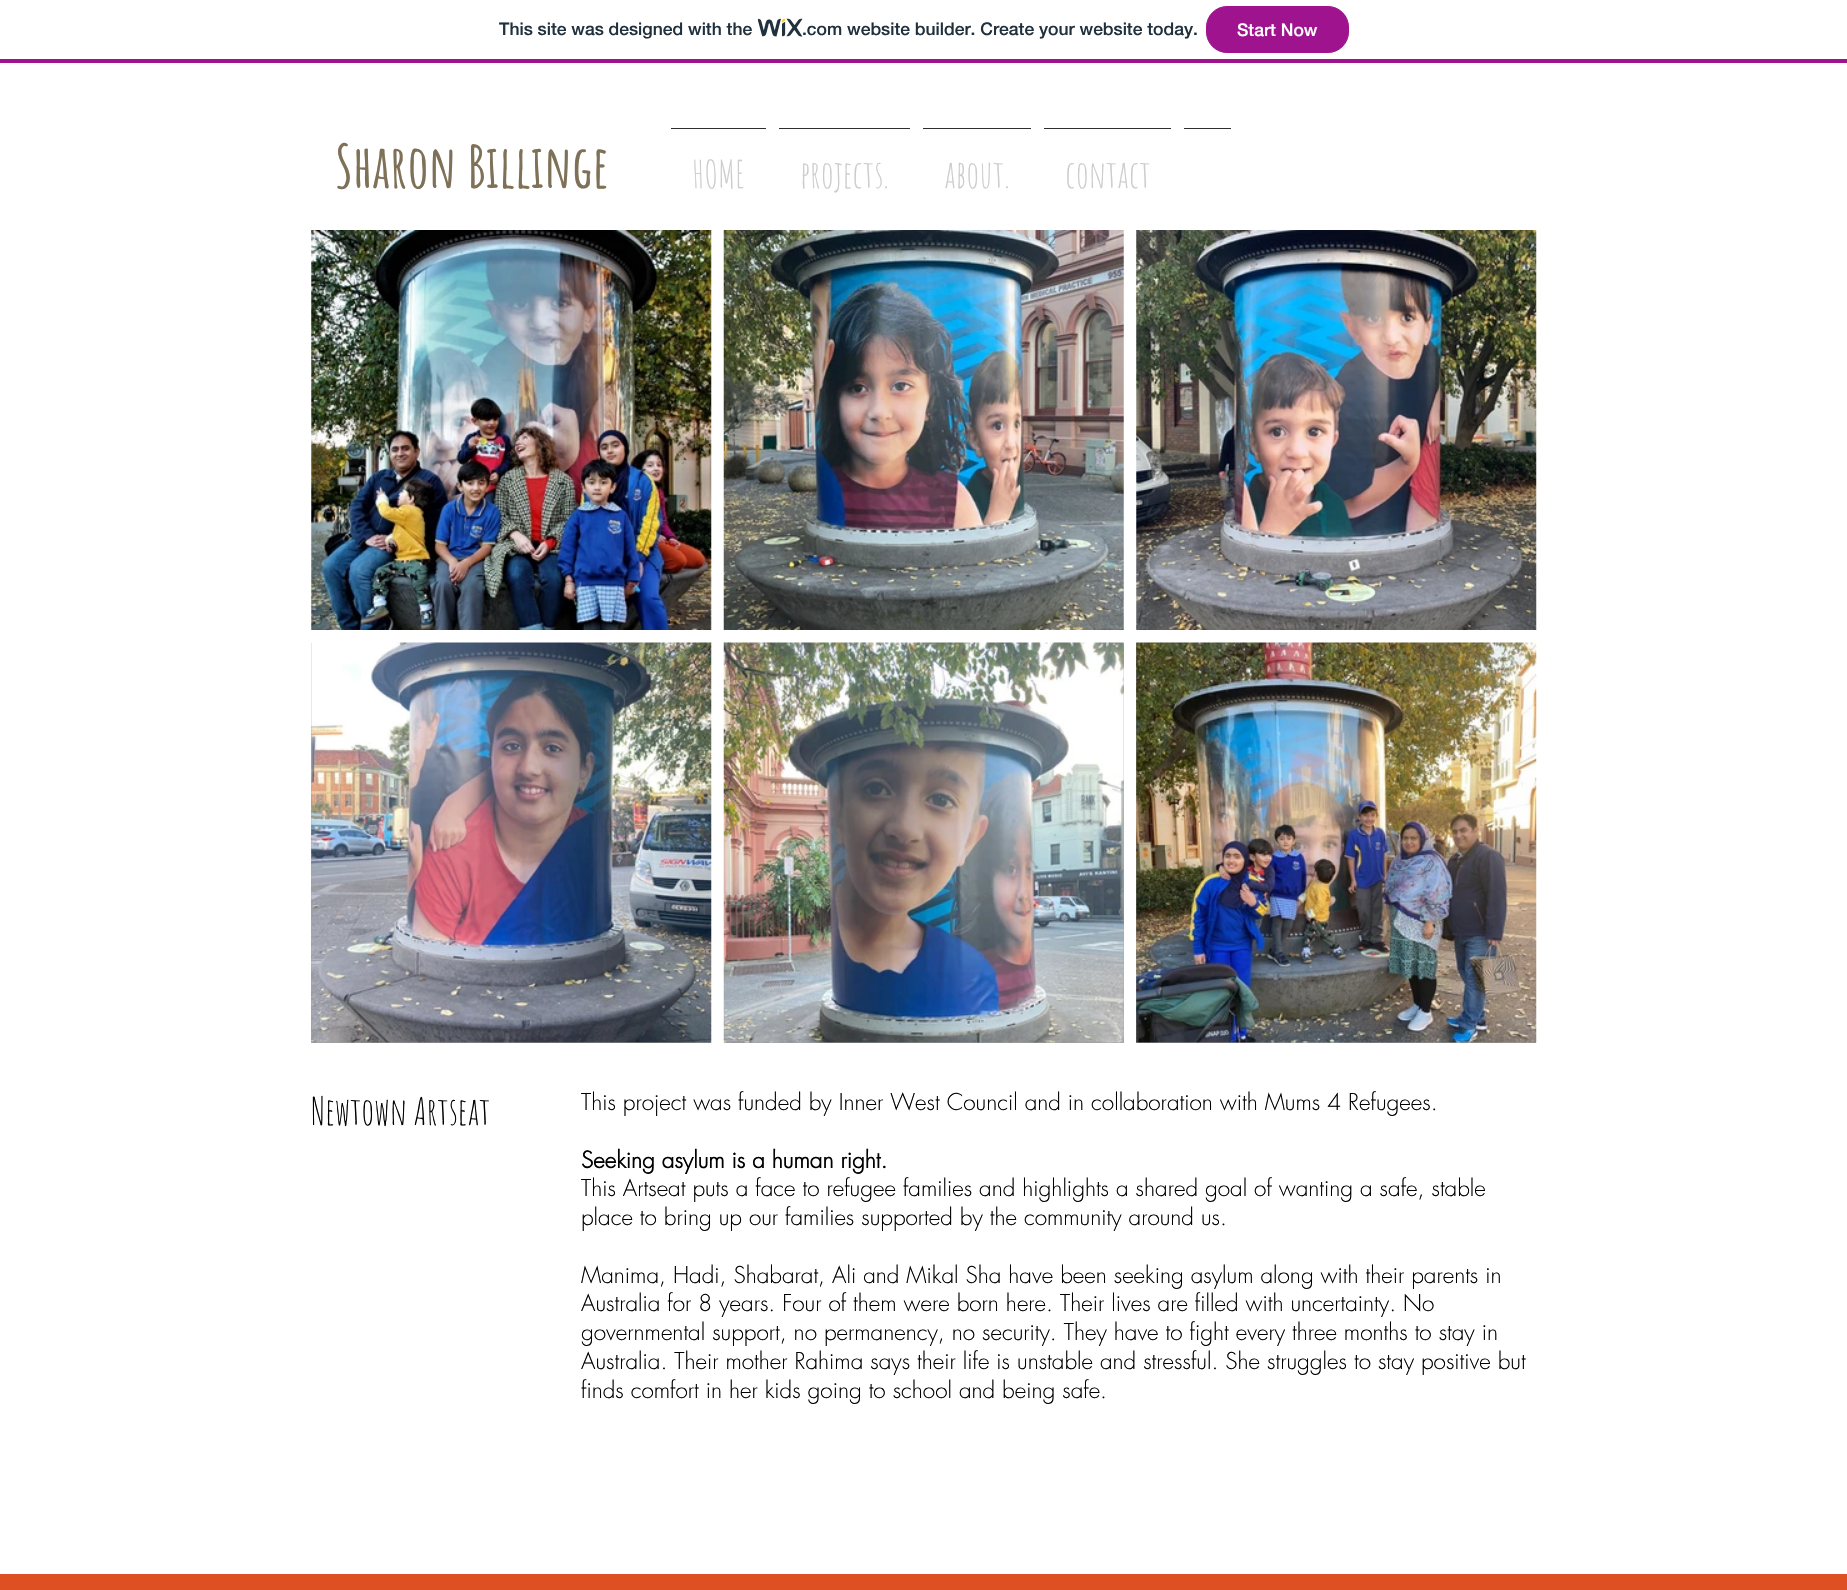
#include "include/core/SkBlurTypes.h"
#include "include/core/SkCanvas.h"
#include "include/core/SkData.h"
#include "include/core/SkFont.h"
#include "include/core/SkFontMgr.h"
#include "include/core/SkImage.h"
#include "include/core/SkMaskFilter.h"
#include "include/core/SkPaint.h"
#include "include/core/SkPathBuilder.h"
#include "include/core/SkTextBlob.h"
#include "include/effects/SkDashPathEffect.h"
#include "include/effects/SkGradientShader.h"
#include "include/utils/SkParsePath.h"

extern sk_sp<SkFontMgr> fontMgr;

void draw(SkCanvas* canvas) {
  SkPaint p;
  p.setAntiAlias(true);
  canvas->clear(SK_ColorWHITE);
  p.setColor(SkColorSetRGB(160, 19, 142));
  canvas->drawRect(SkRect::MakeLTRB(0, 59, 1847, 63), p);
  canvas->drawImageRect(SkImages::DeferredFromEncodedData(SkData::MakeFromFileName("images/1.png")), SkRect::MakeLTRB(758, 18, 803, 37), SkSamplingOptions());
  canvas->drawRoundRect(SkRect::MakeLTRB(1206.5f, 6.5f, 1348.5f, 52.5f), 20.5f, 20.5f, p);
  p.setStyle(SkPaint::kStroke_Style);
  p.setStrokeWidth(1);
  canvas->drawRoundRect(SkRect::MakeLTRB(1206.5f, 6.5f, 1348.5f, 52.5f), 20.5f, 20.5f, p);
  p.setStyle(SkPaint::kFill_Style);
  p.setColor(SkColorSetRGB(47, 46, 46));
  canvas->drawRect(SkRect::MakeLTRB(1184, 128, 1231, 129), p);
  canvas->drawRect(SkRect::MakeLTRB(671, 128, 766, 129), p);
  canvas->drawRect(SkRect::MakeLTRB(779, 128, 910, 129), p);
  canvas->drawRect(SkRect::MakeLTRB(923, 128, 1031, 129), p);
  canvas->drawRect(SkRect::MakeLTRB(1044, 128, 1171, 129), p);
  canvas->drawImageRect(SkImages::DeferredFromEncodedData(SkData::MakeFromFileName("images/2.png")), SkRect::MakeLTRB(311, 230, 712, 630), SkSamplingOptions());
  canvas->drawImageRect(SkImages::DeferredFromEncodedData(SkData::MakeFromFileName("images/3.png")), SkRect::MakeLTRB(723, 230, 1124, 630), SkSamplingOptions());
  canvas->drawImageRect(SkImages::DeferredFromEncodedData(SkData::MakeFromFileName("images/4.png")), SkRect::MakeLTRB(1136, 230, 1537, 630), SkSamplingOptions());
  p.setColor(SkColorSetRGB(160, 160, 159));
  canvas->drawRect(SkRect::MakeLTRB(311, 643, 711, 1043), p);
  canvas->drawImageRect(SkImages::DeferredFromEncodedData(SkData::MakeFromFileName("images/5.png")), SkRect::MakeLTRB(311, 642, 712, 1043), SkSamplingOptions());
  canvas->drawRect(SkRect::MakeLTRB(724, 643, 1124, 1043), p);
  canvas->drawImageRect(SkImages::DeferredFromEncodedData(SkData::MakeFromFileName("images/6.png")), SkRect::MakeLTRB(723, 642, 1124, 1043), SkSamplingOptions());
  canvas->drawRect(SkRect::MakeLTRB(1136, 643, 1536, 1043), p);
  canvas->drawImageRect(SkImages::DeferredFromEncodedData(SkData::MakeFromFileName("images/7.png")), SkRect::MakeLTRB(1136, 642, 1537, 1043), SkSamplingOptions());
  p.setColor(SkColorSetRGB(222, 80, 33));
  canvas->drawRect(SkRect::MakeLTRB(0, 1574, 1847, 1590), p);
  SkFont font1(fontMgr->matchFamilyStyle("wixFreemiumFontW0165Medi", SkFontStyle(500, SkFontStyle::kNormal_Width, SkFontStyle::kUpright_Slant)), 17.5f);
  font1.setSubpixel(true);
  p.setColor(SkColorSetRGB(32, 48, 60));
  canvas->drawString("This site was designed with the", 499, 35, font1, p);
  canvas->drawString(".com website builder. Create your website today.", 802, 35, font1, p);
  p.setColor(SK_ColorWHITE);
  canvas->drawString("Start Now", 1237, 36, font1, p);
  SkFont font2(fontMgr->matchFamilyStyle("Amatic SC", SkFontStyle::Bold()), 58.75f);
  font2.setSubpixel(true);
  p.setColor(SkColorSetRGB(127, 113, 87));
  canvas->drawString("Sharon Billinge", 335, 188, font2, p);
  SkFont font3(fontMgr->matchFamilyStyle("Amatic SC", SkFontStyle::Normal()), 37.5f);
  font3.setSubpixel(true);
  p.setColor(SkColorSetRGB(204, 204, 204));
  canvas->drawString("HOME", 692, 188, font3, p);
  canvas->drawString("projects.", 800, 188, font3, p);
  canvas->drawString("about.", 944, 188, font3, p);
  canvas->drawString("contact", 1065, 188, font3, p);
  p.setColor(SK_ColorBLACK);
  canvas->drawString("Newtown Artseat", 311, 1125, font3, p);
  SkFont font4(fontMgr->matchFamilyStyle("futura", SkFontStyle(300, SkFontStyle::kNormal_Width, SkFontStyle::kUpright_Slant)), 22.5f);
  font4.setSubpixel(true);
  canvas->drawString("This project was funded by Inner West Council and in collaboration with Mums 4 Refugees.", 581, 1110, font4, p);
  SkFont font5(fontMgr->matchFamilyStyle("futura", SkFontStyle::Bold()), 22.5f);
  font5.setSubpixel(true);
  canvas->drawString("Seeking asylum is a human right.", 581, 1168, font5, p);
  canvas->drawString("This Artseat puts a face to refugee families and highlights a shared goal of wanting a safe, stable", 581, 1196, font4, p);
  canvas->drawString("place to bring up our families supported by the community around us.", 581, 1225, font4, p);
  canvas->drawString("Manima, Hadi, Shabarat, Ali and Mikal Sha have been seeking asylum along with their parents in", 581, 1283, font4, p);
  canvas->drawString("Australia for 8 years. Four of them were born here. Their lives are filled with uncertainty. No", 581, 1311, font4, p);
  canvas->drawString("governmental support, no permanency, no security. They have to fight every three months to stay in", 581, 1340, font4, p);
  canvas->drawString("Australia. Their mother Rahima says their life is unstable and stressful. She struggles to stay positive but", 581, 1369, font4, p);
  canvas->drawString("finds comfort in her kids going to school and being safe.", 581, 1398, font4, p);
}
